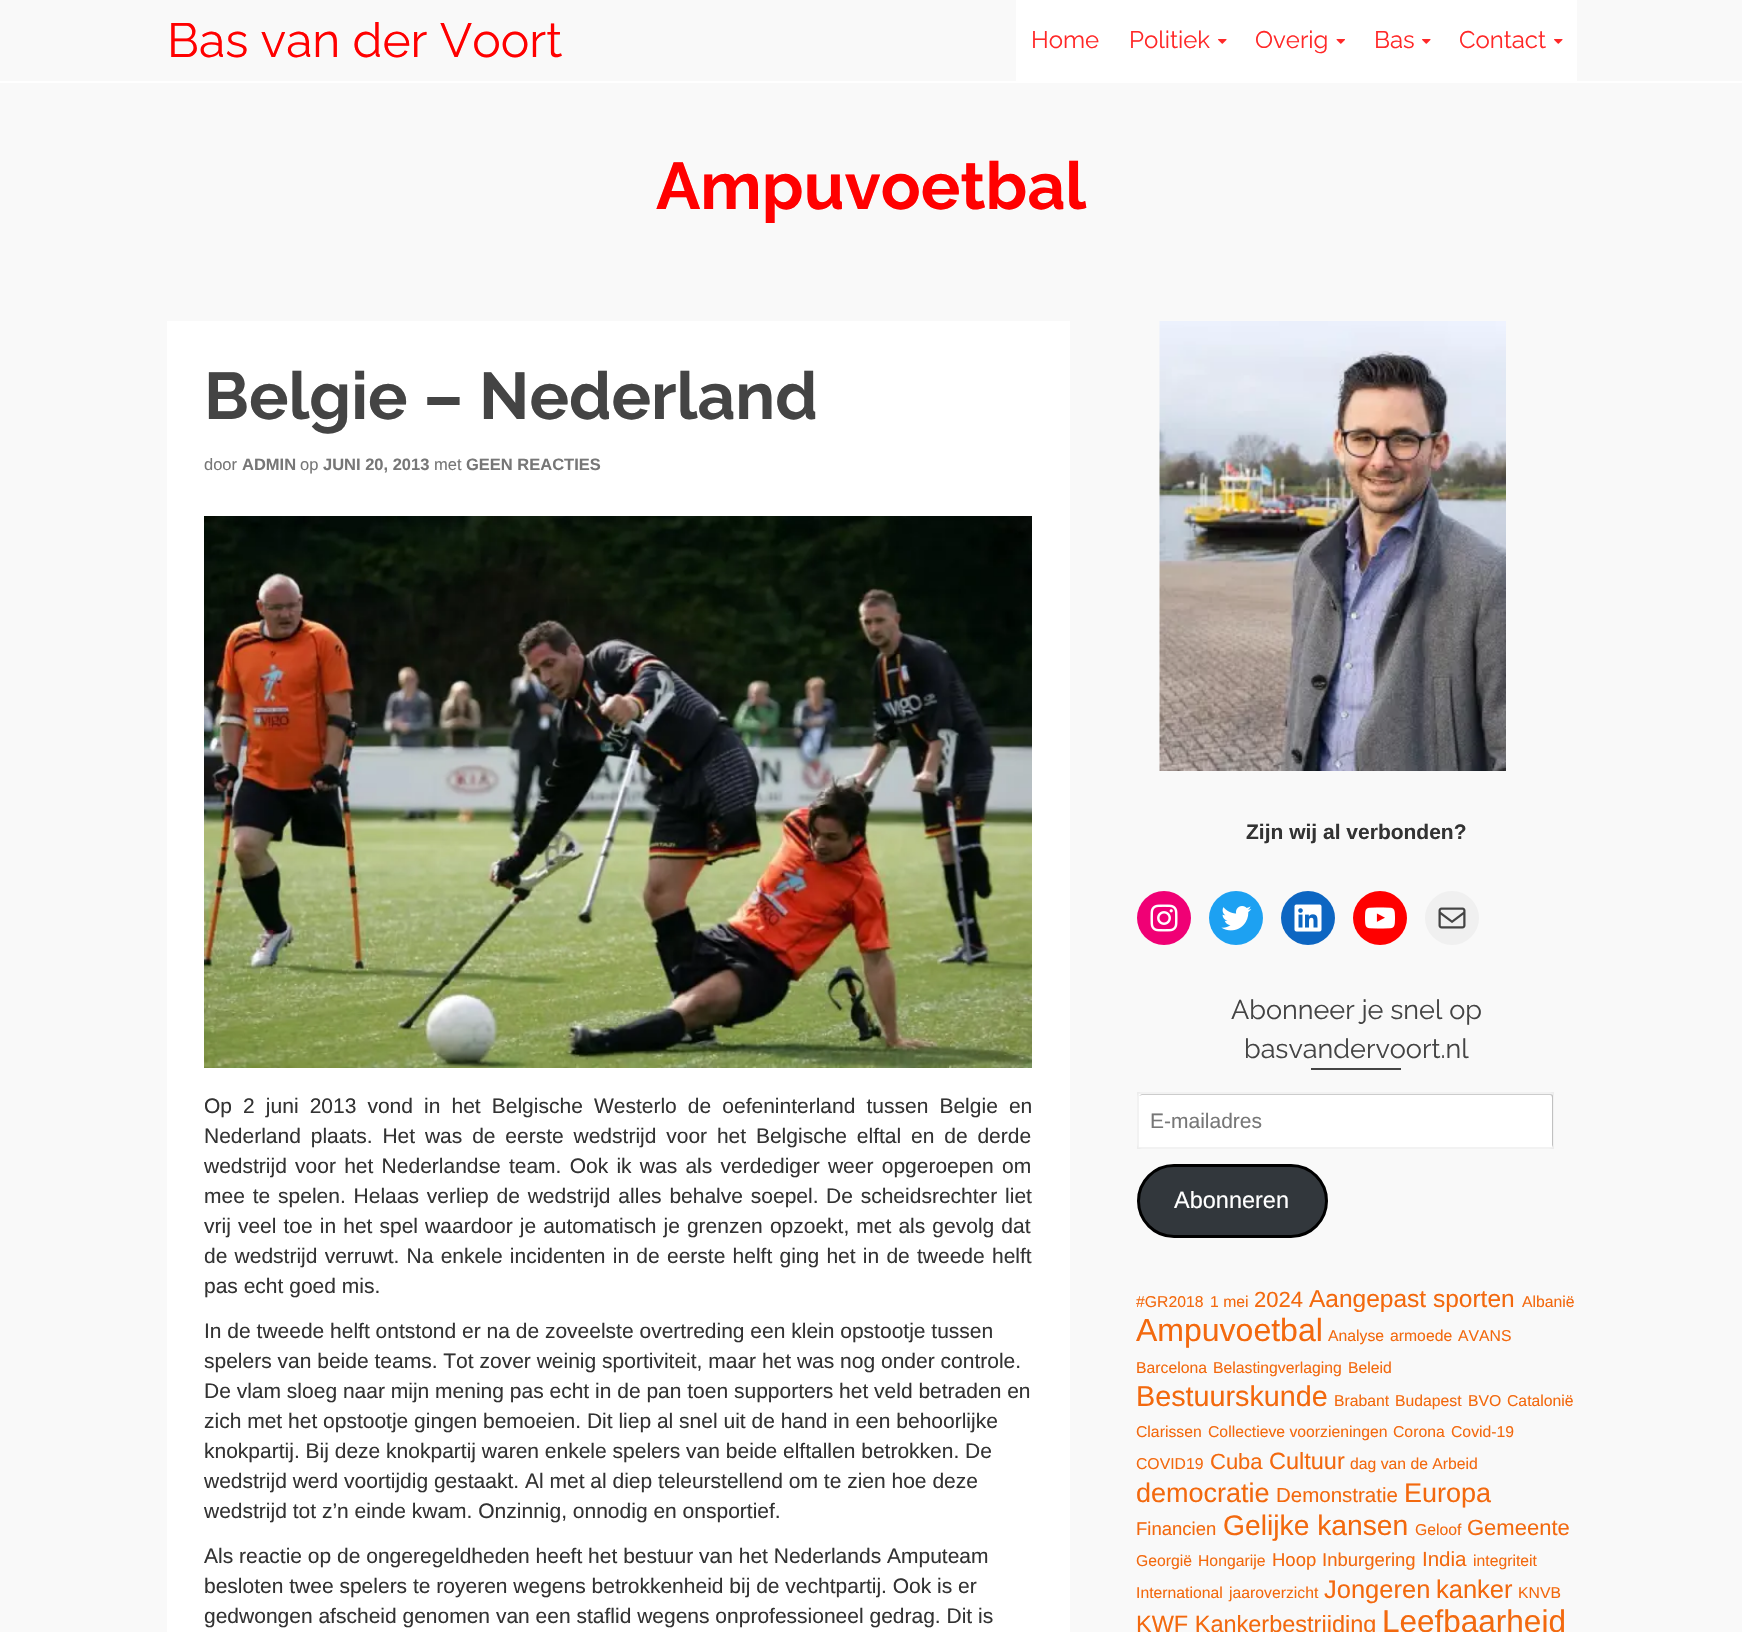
#include "include/core/SkBlurTypes.h"
#include "include/core/SkCanvas.h"
#include "include/core/SkData.h"
#include "include/core/SkFont.h"
#include "include/core/SkFontMgr.h"
#include "include/core/SkImage.h"
#include "include/core/SkMaskFilter.h"
#include "include/core/SkPaint.h"
#include "include/core/SkPathBuilder.h"
#include "include/core/SkTextBlob.h"
#include "include/effects/SkDashPathEffect.h"
#include "include/effects/SkGradientShader.h"
#include "include/utils/SkParsePath.h"

extern sk_sp<SkFontMgr> fontMgr;

void draw(SkCanvas* canvas) {
  SkPaint p;
  p.setAntiAlias(true);
  auto spacedText = [&](const char* s, float x, float y, const SkFont& font, const SkPaint& ink, float letter, float word) {
    std::vector<SkGlyphID> glyphs(font.countText(s, strlen(s), SkTextEncoding::kUTF8));
    std::vector<float> xs(glyphs.size());
    font.textToGlyphs(s, strlen(s), SkTextEncoding::kUTF8, glyphs);
    font.getXPos(glyphs, xs, x);
    float extra = 0;
    for (size_t i = 0; i < glyphs.size(); i++) {
      xs[i] += extra;
      extra += letter + word * (glyphs[i] == font.unicharToGlyph(' '));
    }
    canvas->drawTextBlob(SkTextBlob::MakeFromPosHGlyphs(glyphs, xs, y, font), 0, 0, ink);
  };
  canvas->clear(SkColorSetRGB(249, 249, 249));
  p.setColor(SK_ColorWHITE);
  canvas->drawRect(SkRect::MakeLTRB(0, 81, 1742, 83), p);
  canvas->drawRect(SkRect::MakeLTRB(1016, 0, 1577, 81), p);
  canvas->drawImageRect(SkImages::DeferredFromEncodedData(SkData::MakeFromFileName("images/1.png")), SkRect::MakeLTRB(1218, 39, 1227, 44), SkSamplingOptions());
  canvas->drawImageRect(SkImages::DeferredFromEncodedData(SkData::MakeFromFileName("images/2.png")), SkRect::MakeLTRB(1336, 39, 1345, 44), SkSamplingOptions());
  canvas->drawImageRect(SkImages::DeferredFromEncodedData(SkData::MakeFromFileName("images/1.png")), SkRect::MakeLTRB(1422, 39, 1431, 44), SkSamplingOptions());
  canvas->drawImageRect(SkImages::DeferredFromEncodedData(SkData::MakeFromFileName("images/1.png")), SkRect::MakeLTRB(1554, 39, 1563, 44), SkSamplingOptions());
  canvas->drawRect(SkRect::MakeLTRB(167, 321, 1070, 1632), p);
  canvas->drawImageRect(SkImages::DeferredFromEncodedData(SkData::MakeFromFileName("images/3.png")), SkRect::MakeLTRB(204, 516, 1032, 1068), SkSamplingOptions());
  canvas->drawImageRect(SkImages::DeferredFromEncodedData(SkData::MakeFromFileName("images/4.png")), SkRect::MakeLTRB(1159, 321, 1506, 771), SkSamplingOptions());
  p.setColor(SkColorSetRGB(240, 0, 117));
  canvas->drawCircle(1164, 918, 27, p);
  canvas->drawImageRect(SkImages::DeferredFromEncodedData(SkData::MakeFromFileName("images/5.png")), SkRect::MakeLTRB(1150, 904, 1178, 932), SkSamplingOptions());
  p.setColor(SkColorSetRGB(29, 161, 242));
  canvas->drawCircle(1236, 918, 27, p);
  canvas->drawImageRect(SkImages::DeferredFromEncodedData(SkData::MakeFromFileName("images/6.png")), SkRect::MakeLTRB(1221, 906, 1252, 931), SkSamplingOptions());
  p.setColor(SkColorSetRGB(13, 102, 194));
  canvas->drawCircle(1308, 918, 27, p);
  canvas->drawImageRect(SkImages::DeferredFromEncodedData(SkData::MakeFromFileName("images/7.png")), SkRect::MakeLTRB(1294, 904, 1322, 932), SkSamplingOptions());
  p.setColor(SkColorSetRGB(255, 0, 0));
  canvas->drawCircle(1380, 918, 27, p);
  canvas->drawImageRect(SkImages::DeferredFromEncodedData(SkData::MakeFromFileName("images/8.png")), SkRect::MakeLTRB(1365, 907, 1395, 929), SkSamplingOptions());
  p.setColor(SkColorSetRGB(240, 240, 240));
  canvas->drawCircle(1452, 918, 27, p);
  canvas->drawImageRect(SkImages::DeferredFromEncodedData(SkData::MakeFromFileName("images/9.png")), SkRect::MakeLTRB(1438, 907, 1466, 929), SkSamplingOptions());
  p.setColor(SkColorSetRGB(68, 68, 68));
  canvas->drawRect(SkRect::MakeLTRB(1311, 1068, 1401, 1070), p);
  p.setColor(SK_ColorWHITE);
  canvas->drawRoundRect(SkRect::MakeLTRB(1137, 1092, 1554, 1149), 5, 5, p);
  p.setColor(SkColorSetRGB(204, 204, 204));
  canvas->drawPath(SkPathBuilder().moveTo(1142, 1095).lineTo(1550, 1095).cubicTo(1551, 1095, 1552, 1096, 1552, 1098).lineTo(1552, 1147).lineTo(1553, 1145).lineTo(1553, 1096).cubicTo(1553, 1095, 1552, 1094, 1551, 1094).lineTo(1142, 1094).cubicTo(1141, 1094, 1140, 1095, 1139, 1096).close().detach(), p);
  p.setStyle(SkPaint::kStroke_Style);
  p.setStrokeWidth(2);
  p.setColor(SkColorSetARGB(13, 0, 0, 0));
  canvas->drawRect(SkRect::MakeLTRB(1138, 1093, 1553, 1148), p);
  p.setStyle(SkPaint::kFill_Style);
  p.setColor(SkColorSetRGB(50, 55, 60));
  canvas->drawRoundRect(SkRect::MakeLTRB(1138.5f, 1165.5f, 1326.5f, 1236.5f), 35.5f, 35.5f, p);
  p.setStyle(SkPaint::kStroke_Style);
  p.setStrokeWidth(3);
  p.setColor(SK_ColorBLACK);
  canvas->drawRoundRect(SkRect::MakeLTRB(1138.5f, 1165.5f, 1326.5f, 1236.5f), 35.5f, 35.5f, p);
  SkFont font1(fontMgr->matchFamilyStyle("Raleway", SkFontStyle::Normal()), 48);
  font1.setSubpixel(true);
  p.setStyle(SkPaint::kFill_Style);
  p.setColor(SkColorSetRGB(255, 0, 0));
  canvas->drawString("Bas van der Voort", 167, 57, font1, p);
  SkFont font2(fontMgr->matchFamilyStyle("Raleway", SkFontStyle::Normal()), 24);
  font2.setSubpixel(true);
  p.setColor(SkColorSetRGB(255, 40, 40));
  canvas->drawString("Home", 1031, 48, font2, p);
  canvas->drawString("Politiek", 1129, 48, font2, p);
  canvas->drawString("Overig", 1255, 48, font2, p);
  canvas->drawString("Bas", 1374, 48, font2, p);
  canvas->drawString("Contact", 1459, 48, font2, p);
  SkFont font3(fontMgr->matchFamilyStyle("Raleway", SkFontStyle::Bold()), 66);
  font3.setSubpixel(true);
  p.setColor(SkColorSetRGB(255, 0, 0));
  canvas->drawString("Ampuvoetbal", 656, 209, font3, p);
  p.setColor(SkColorSetRGB(68, 68, 68));
  canvas->drawString("Belgie – Nederland", 204, 419, font3, p);
  SkFont font4(fontMgr->matchFamilyStyle("Liberation Sans", SkFontStyle::Normal()), 16.5f);
  font4.setSubpixel(true);
  p.setColor(SkColorSetRGB(119, 119, 119));
  canvas->drawString("door", 204, 470, font4, p);
  SkFont font5(fontMgr->matchFamilyStyle("Liberation Sans", SkFontStyle::Bold()), 16.5f);
  font5.setSubpixel(true);
  canvas->drawString("ADMIN", 242, 470, font5, p);
  canvas->drawString("op", 300, 470, font4, p);
  canvas->drawString("JUNI 20, 2013", 323, 470, font5, p);
  canvas->drawString("met", 434, 470, font4, p);
  canvas->drawString("GEEN REACTIES", 466, 470, font5, p);
  SkFont font6(fontMgr->matchFamilyStyle("Liberation Sans", SkFontStyle::Normal()), 21);
  font6.setSubpixel(true);
  p.setColor(SkColorSetRGB(51, 51, 51));
  spacedText("Op 2 juni 2013 vond in het Belgische Westerlo de oefeninterland tussen Belgie en", 204, 1113, font6, p, 0, 5.25f);
  spacedText("Nederland plaats. Het was de eerste wedstrijd voor het Belgische elftal en de derde", 204, 1143, font6, p, 0, 4);
  spacedText("wedstrijd voor het Nederlandse team. Ook ik was als verdediger weer opgeroepen om", 204, 1173, font6, p, 0, 2.4f);
  spacedText("mee te spelen. Helaas verliep de wedstrijd alles behalve soepel.", 204, 1203, font6, p, 0, 2);
  spacedText("De scheidsrechter liet", 826, 1203, font6, p, 0, 2);
  spacedText("vrij veel toe in het spel waardoor je automatisch je grenzen opzoekt, met als gevolg dat", 204, 1233, font6, p, 0, 1.25f);
  spacedText("de wedstrijd verruwt. Na enkele incidenten in de eerste helft ging het in de tweede helft", 204, 1263, font6, p, 0, 1.4f);
  canvas->drawString("pas echt goed mis.", 204, 1293, font6, p);
  canvas->drawString("In de tweede helft ontstond er na de zoveelste overtreding een klein opstootje tussen", 204, 1338, font6, p);
  canvas->drawString("spelers van beide teams. Tot zover weinig sportiviteit, maar het was nog onder controle.", 204, 1368, font6, p);
  canvas->drawString("De vlam sloeg naar mijn mening pas echt in de pan toen supporters het veld betraden en", 204, 1398, font6, p);
  canvas->drawString("zich met het opstootje gingen bemoeien. Dit liep al snel uit de hand in een behoorlijke", 204, 1428, font6, p);
  canvas->drawString("knokpartij. Bij deze knokpartij waren enkele spelers van beide elftallen betrokken. De", 204, 1458, font6, p);
  canvas->drawString("wedstrijd werd voortijdig gestaakt. Al met al diep teleurstellend om te zien hoe deze", 204, 1488, font6, p);
  canvas->drawString("wedstrijd tot z’n einde kwam. Onzinnig, onnodig en onsportief.", 204, 1518, font6, p);
  canvas->drawString("Als reactie op de ongeregeldheden heeft het bestuur van het Nederlands Amputeam", 204, 1563, font6, p);
  canvas->drawString("besloten twee spelers te royeren wegens betrokkenheid bij de vechtpartij. Ook is er", 204, 1593, font6, p);
  canvas->drawString("gedwongen afscheid genomen van een staflid wegens onprofessioneel gedrag. Dit is", 204, 1623, font6, p);
  SkFont font7(fontMgr->matchFamilyStyle("Liberation Sans", SkFontStyle::Bold()), 21);
  font7.setSubpixel(true);
  canvas->drawString("Zijn wij al verbonden?", 1246, 839, font7, p);
  SkFont font8(fontMgr->matchFamilyStyle("Raleway", SkFontStyle::Normal()), 27);
  font8.setSubpixel(true);
  p.setColor(SkColorSetRGB(68, 68, 68));
  canvas->drawString("Abonneer je snel op", 1231, 1019, font8, p);
  canvas->drawString("basvandervoort.nl", 1244, 1058, font8, p);
  p.setColor(SkColorSetRGB(119, 119, 119));
  canvas->drawString("E-mailadres", 1150, 1128, font6, p);
  SkFont font9(fontMgr->matchFamilyStyle("Liberation Sans", SkFontStyle::Normal()), 23.5f);
  font9.setSubpixel(true);
  p.setColor(SK_ColorWHITE);
  canvas->drawString("Abonneren", 1174, 1208, font9, p);
  SkFont font10(fontMgr->matchFamilyStyle("Liberation Sans", SkFontStyle::Normal()), 15.75f);
  font10.setSubpixel(true);
  p.setColor(SkColorSetRGB(243, 105, 14));
  canvas->drawString("#GR2018", 1136, 1307, font10, p);
  canvas->drawString("1 mei", 1210, 1307, font10, p);
  SkFont font11(fontMgr->matchFamilyStyle("Liberation Sans", SkFontStyle::Normal()), 22);
  font11.setSubpixel(true);
  canvas->drawString("2024", 1254, 1307, font11, p);
  SkFont font12(fontMgr->matchFamilyStyle("Liberation Sans", SkFontStyle::Normal()), 24.5f);
  font12.setSubpixel(true);
  canvas->drawString("Aangepast sporten", 1309, 1307, font12, p);
  canvas->drawString("Albanië", 1522, 1307, font10, p);
  SkFont font13(fontMgr->matchFamilyStyle("Liberation Sans", SkFontStyle::Normal()), 32);
  font13.setSubpixel(true);
  canvas->drawString("Ampuvoetbal", 1136, 1341, font13, p);
  canvas->drawString("Analyse", 1328, 1341, font10, p);
  canvas->drawString("armoede", 1390, 1341, font10, p);
  canvas->drawString("AVANS", 1458, 1341, font10, p);
  canvas->drawString("Barcelona", 1136, 1373, font10, p);
  canvas->drawString("Belastingverlaging", 1213, 1373, font10, p);
  canvas->drawString("Beleid", 1348, 1373, font10, p);
  SkFont font14(fontMgr->matchFamilyStyle("Liberation Sans", SkFontStyle::Normal()), 28.75f);
  font14.setSubpixel(true);
  canvas->drawString("Bestuurskunde", 1136, 1406, font14, p);
  canvas->drawString("Brabant", 1334, 1406, font10, p);
  canvas->drawString("Budapest", 1395, 1406, font10, p);
  canvas->drawString("BVO", 1468, 1406, font10, p);
  canvas->drawString("Catalonië", 1507, 1406, font10, p);
  canvas->drawString("Clarissen", 1136, 1437, font10, p);
  canvas->drawString("Collectieve voorzieningen", 1208, 1437, font10, p);
  canvas->drawString("Corona", 1393, 1437, font10, p);
  canvas->drawString("Covid-19", 1451, 1437, font10, p);
  canvas->drawString("COVID19", 1136, 1469, font10, p);
  canvas->drawString("Cuba", 1210, 1469, font11, p);
  canvas->drawString("Cultuur", 1269, 1469, font9, p);
  canvas->drawString("dag van de Arbeid", 1350, 1469, font10, p);
  SkFont font15(fontMgr->matchFamilyStyle("Liberation Sans", SkFontStyle::Normal()), 27);
  font15.setSubpixel(true);
  canvas->drawString("democratie", 1136, 1502, font15, p);
  SkFont font16(fontMgr->matchFamilyStyle("Liberation Sans", SkFontStyle::Normal()), 20.5f);
  font16.setSubpixel(true);
  canvas->drawString("Demonstratie", 1276, 1502, font16, p);
  canvas->drawString("Europa", 1404, 1502, font15, p);
  SkFont font17(fontMgr->matchFamilyStyle("Liberation Sans", SkFontStyle::Normal()), 18.5f);
  font17.setSubpixel(true);
  canvas->drawString("Financien", 1136, 1535, font17, p);
  SkFont font18(fontMgr->matchFamilyStyle("Liberation Sans", SkFontStyle::Normal()), 28.25f);
  font18.setSubpixel(true);
  canvas->drawString("Gelijke kansen", 1223, 1535, font18, p);
  canvas->drawString("Geloof", 1415, 1535, font10, p);
  canvas->drawString("Gemeente", 1467, 1535, font11, p);
  canvas->drawString("Georgië", 1136, 1566, font10, p);
  canvas->drawString("Hongarije", 1198, 1566, font10, p);
  canvas->drawString("Hoop", 1272, 1566, font17, p);
  canvas->drawString("Inburgering", 1322, 1566, font17, p);
  canvas->drawString("India", 1422, 1566, font16, p);
  canvas->drawString("integriteit", 1473, 1566, font10, p);
  canvas->drawString("International", 1136, 1598, font10, p);
  canvas->drawString("jaaroverzicht", 1229, 1598, font10, p);
  SkFont font19(fontMgr->matchFamilyStyle("Liberation Sans", SkFontStyle::Normal()), 25.5f);
  font19.setSubpixel(true);
  canvas->drawString("Jongeren", 1324, 1598, font19, p);
  canvas->drawString("kanker", 1436, 1598, font19, p);
  canvas->drawString("KNVB", 1518, 1598, font10, p);
  canvas->drawString("KWF Kankerbestrijding", 1136, 1632, font9, p);
  SkFont font20(fontMgr->matchFamilyStyle("Liberation Sans", SkFontStyle::Normal()), 31.5f);
  font20.setSubpixel(true);
  canvas->drawString("Leefbaarheid", 1382, 1632, font20, p);
}
